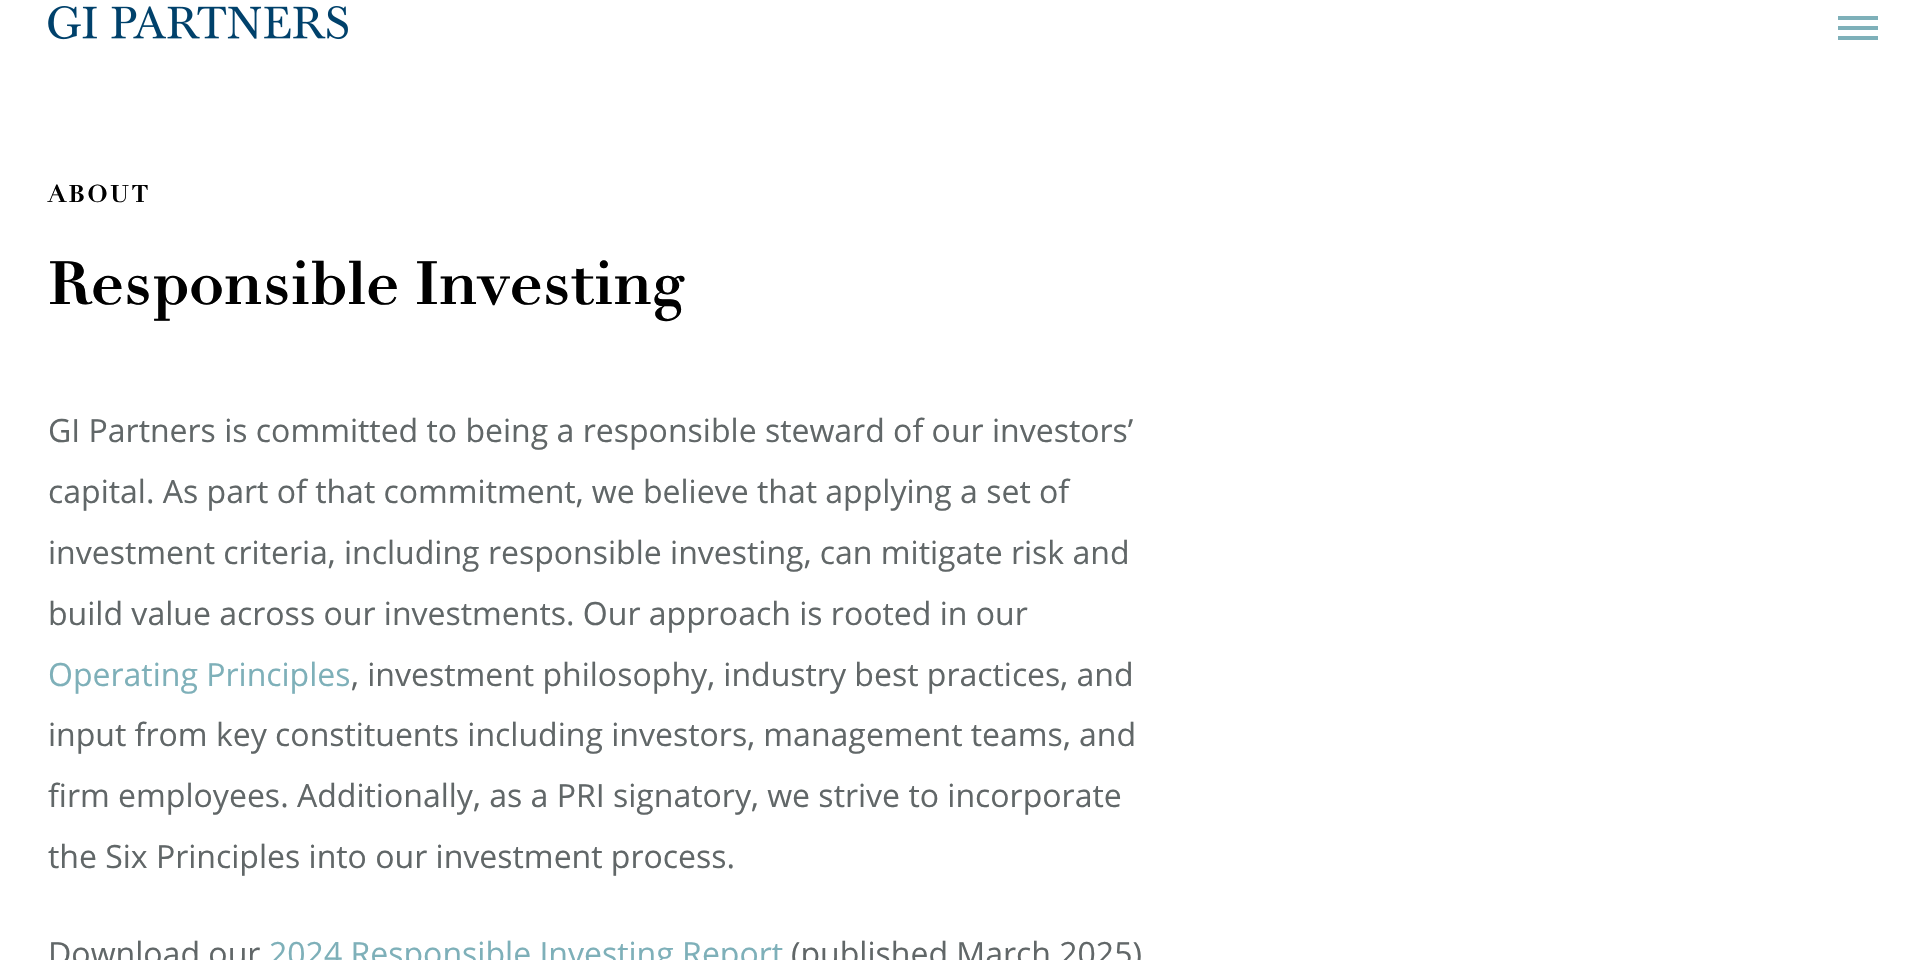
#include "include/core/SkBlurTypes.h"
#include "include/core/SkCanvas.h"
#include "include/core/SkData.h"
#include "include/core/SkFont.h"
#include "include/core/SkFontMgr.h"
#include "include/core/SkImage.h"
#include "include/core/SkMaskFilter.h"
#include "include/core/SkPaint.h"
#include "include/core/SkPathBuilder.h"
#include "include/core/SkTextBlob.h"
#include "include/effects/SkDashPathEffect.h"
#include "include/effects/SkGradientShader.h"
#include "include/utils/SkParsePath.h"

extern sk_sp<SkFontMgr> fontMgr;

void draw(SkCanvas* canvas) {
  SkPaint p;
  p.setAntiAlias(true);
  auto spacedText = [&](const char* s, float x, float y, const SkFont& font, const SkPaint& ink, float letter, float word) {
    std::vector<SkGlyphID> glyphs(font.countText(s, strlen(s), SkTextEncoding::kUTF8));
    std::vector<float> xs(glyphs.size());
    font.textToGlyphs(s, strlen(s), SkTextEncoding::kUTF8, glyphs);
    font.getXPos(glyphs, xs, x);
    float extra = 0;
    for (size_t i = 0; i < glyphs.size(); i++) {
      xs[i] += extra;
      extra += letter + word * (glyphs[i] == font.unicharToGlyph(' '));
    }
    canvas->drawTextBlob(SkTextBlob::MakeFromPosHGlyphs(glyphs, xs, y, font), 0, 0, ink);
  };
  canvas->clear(SK_ColorWHITE);
  canvas->drawImageRect(SkImages::DeferredFromEncodedData(SkData::MakeFromFileName("images/1.png")), SkRect::MakeLTRB(48, 6, 348, 40), SkSamplingOptions());
  p.setColor(SkColorSetRGB(126, 176, 185));
  canvas->drawRect(SkRect::MakeLTRB(1838, 26, 1878, 30), p);
  canvas->drawRect(SkRect::MakeLTRB(1838, 16, 1878, 20), p);
  canvas->drawRect(SkRect::MakeLTRB(1838, 36, 1878, 40), p);
  SkFont font1(fontMgr->matchFamilyStyle("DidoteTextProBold", SkFontStyle::Normal()), 24);
  font1.setSubpixel(true);
  p.setColor(SK_ColorBLACK);
  spacedText("ABOUT", 48, 202, font1, p, 2.5f, 0);
  SkFont font2(fontMgr->matchFamilyStyle("DidoteTextProBold", SkFontStyle::Normal()), 60);
  font2.setSubpixel(true);
  canvas->drawString("Responsible Investing", 48, 304, font2, p);
  SkFont font3(fontMgr->matchFamilyStyle("Open Sans", SkFontStyle::Normal()), 32);
  font3.setSubpixel(true);
  p.setColor(SkColorSetRGB(97, 103, 104));
  canvas->drawString("GI Partners is committed to being a responsible steward of our investors’", 48, 442, font3, p);
  canvas->drawString("capital. As part of that commitment, we believe that applying a set of", 48, 503, font3, p);
  canvas->drawString("investment criteria, including responsible investing, can mitigate risk and", 48, 564, font3, p);
  canvas->drawString("build value across our investments. Our approach is rooted in our", 48, 625, font3, p);
  p.setColor(SkColorSetRGB(126, 176, 185));
  canvas->drawString("Operating Principles", 48, 686, font3, p);
  p.setColor(SkColorSetRGB(97, 103, 104));
  canvas->drawString(", investment philosophy, industry best practices, and", 351, 686, font3, p);
  canvas->drawString("input from key constituents including investors, management teams, and", 48, 746, font3, p);
  canvas->drawString("firm employees. Additionally, as a PRI signatory, we strive to incorporate", 48, 807, font3, p);
  canvas->drawString("the Six Principles into our investment process.", 48, 868, font3, p);
  canvas->drawString("Download our", 48, 965, font3, p);
  p.setColor(SkColorSetRGB(126, 176, 185));
  canvas->drawString("2024 Responsible Investing Report", 269, 965, font3, p);
  p.setColor(SkColorSetRGB(97, 103, 104));
  canvas->drawString("(published March 2025)", 791, 965, font3, p);
}
